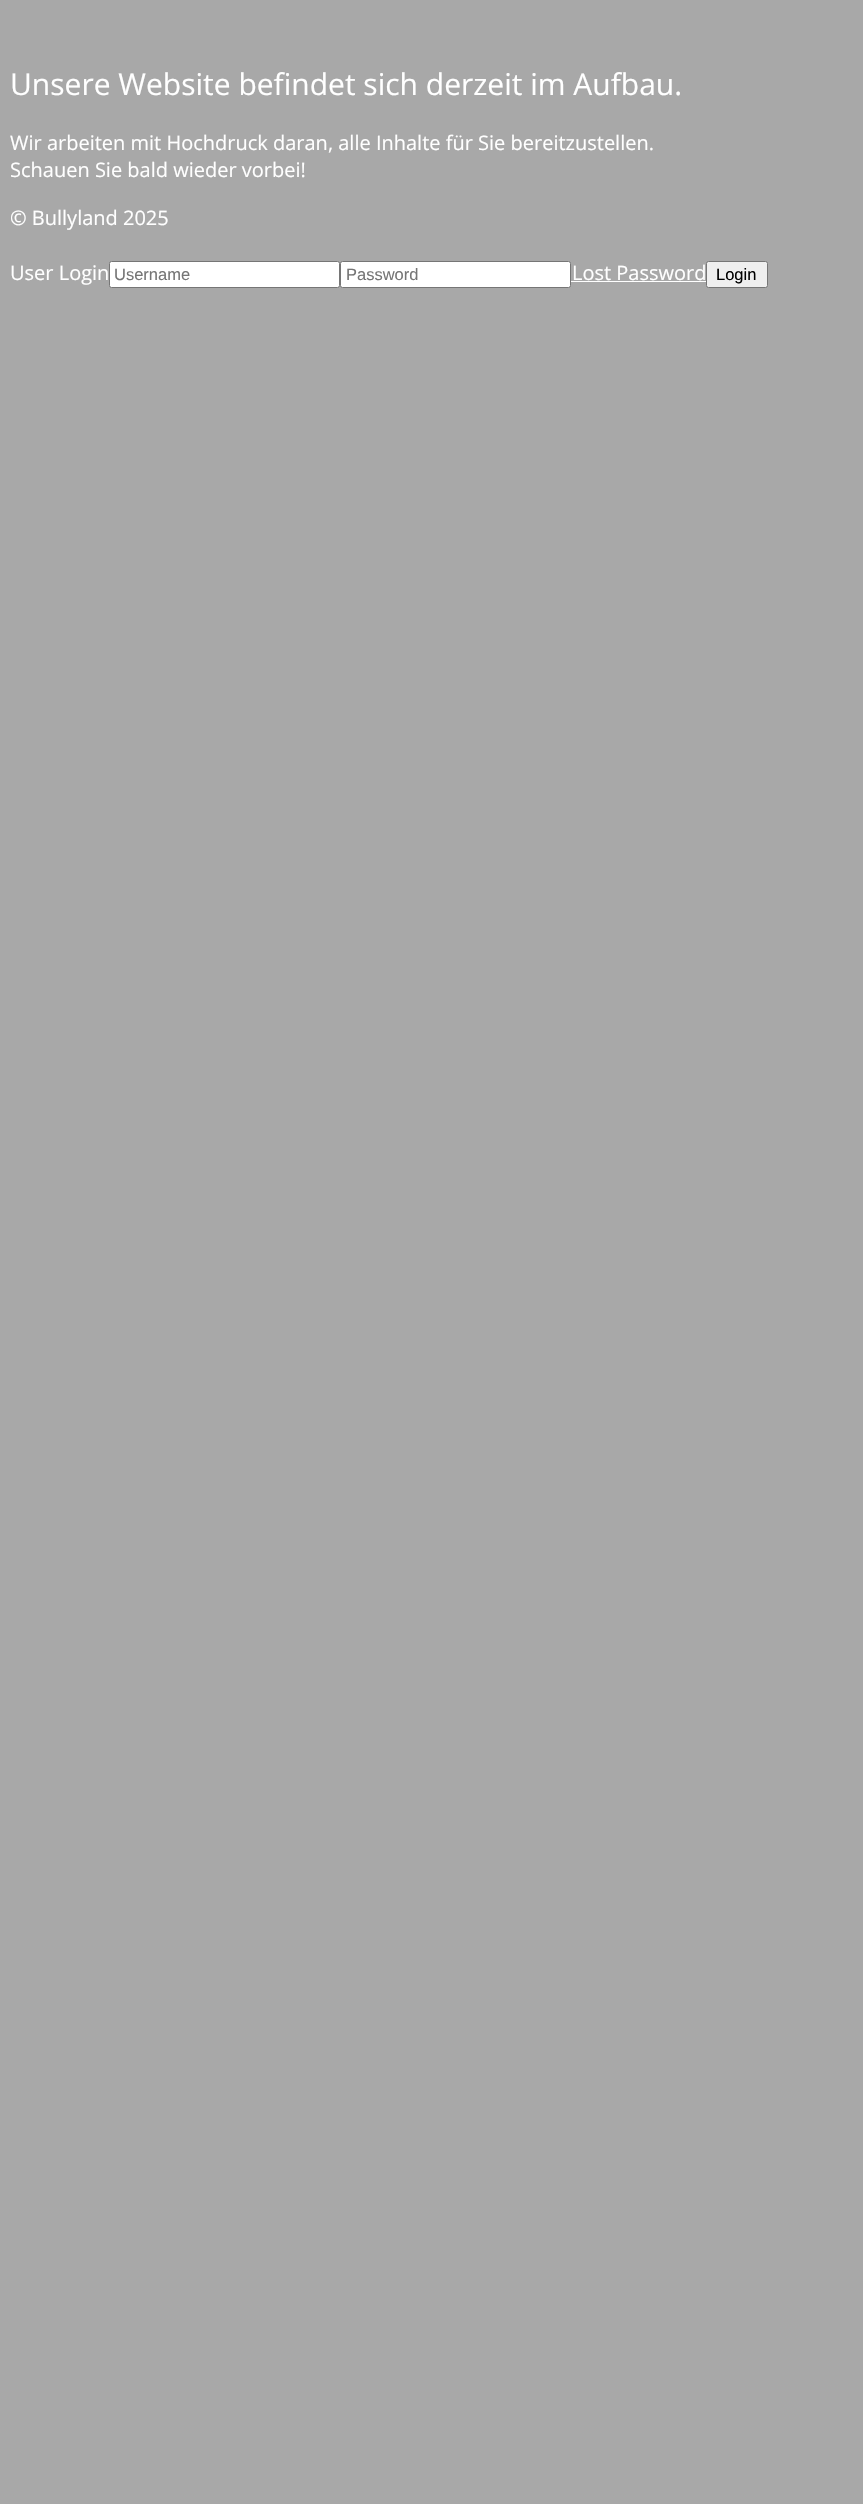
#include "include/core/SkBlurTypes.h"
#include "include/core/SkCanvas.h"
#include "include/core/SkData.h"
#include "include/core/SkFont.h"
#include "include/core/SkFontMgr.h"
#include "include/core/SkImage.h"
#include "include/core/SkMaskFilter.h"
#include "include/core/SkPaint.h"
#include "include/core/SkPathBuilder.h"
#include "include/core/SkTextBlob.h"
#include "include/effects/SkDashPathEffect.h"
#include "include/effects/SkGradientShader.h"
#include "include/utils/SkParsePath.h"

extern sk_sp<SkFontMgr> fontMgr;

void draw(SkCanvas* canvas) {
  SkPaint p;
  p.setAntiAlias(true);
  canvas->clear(SkColorSetRGB(168, 168, 168));
  p.setColor(SK_ColorWHITE);
  canvas->drawRoundRect(SkRect::MakeLTRB(109.5f, 261.5f, 339.5f, 287.5f), 2, 2, p);
  p.setStyle(SkPaint::kStroke_Style);
  p.setStrokeWidth(1);
  p.setColor(SkColorSetRGB(118, 118, 118));
  canvas->drawRoundRect(SkRect::MakeLTRB(109.5f, 261.5f, 339.5f, 287.5f), 2, 2, p);
  p.setStyle(SkPaint::kFill_Style);
  p.setColor(SK_ColorWHITE);
  canvas->drawRoundRect(SkRect::MakeLTRB(340.5f, 261.5f, 570.5f, 287.5f), 2, 2, p);
  p.setStyle(SkPaint::kStroke_Style);
  p.setColor(SkColorSetRGB(118, 118, 118));
  canvas->drawRoundRect(SkRect::MakeLTRB(340.5f, 261.5f, 570.5f, 287.5f), 2, 2, p);
  p.setStyle(SkPaint::kFill_Style);
  p.setColor(SK_ColorWHITE);
  canvas->drawRect(SkRect::MakeLTRB(571, 281, 706, 282), p);
  p.setColor(SkColorSetRGB(239, 239, 239));
  canvas->drawRoundRect(SkRect::MakeLTRB(706.5f, 261.5f, 767.5f, 287.5f), 2, 2, p);
  p.setStyle(SkPaint::kStroke_Style);
  p.setColor(SkColorSetRGB(118, 118, 118));
  canvas->drawRoundRect(SkRect::MakeLTRB(706.5f, 261.5f, 767.5f, 287.5f), 2, 2, p);
  SkFont font1(fontMgr->matchFamilyStyle("Open Sans", SkFontStyle::Normal()), 30);
  font1.setSubpixel(true);
  p.setStyle(SkPaint::kFill_Style);
  p.setColor(SK_ColorWHITE);
  canvas->drawString("Unsere Website befindet sich derzeit im Aufbau.", 10, 95, font1, p);
  SkFont font2(fontMgr->matchFamilyStyle("Open Sans", SkFontStyle::Normal()), 20);
  font2.setSubpixel(true);
  canvas->drawString("Wir arbeiten mit Hochdruck daran, alle Inhalte für Sie bereitzustellen.", 10, 150, font2, p);
  canvas->drawString("Schauen Sie bald wieder vorbei!", 10, 177, font2, p);
  canvas->drawString("© Bullyland 2025", 10, 225, font2, p);
  canvas->drawString("User Login", 10, 280, font2, p);
  SkFont font3(fontMgr->matchFamilyStyle("Liberation Sans", SkFontStyle::Normal()), 16.5f);
  font3.setSubpixel(true);
  p.setColor(SkColorSetRGB(117, 117, 117));
  canvas->drawString("Username", 114, 280, font3, p);
  canvas->drawString("Password", 346, 280, font3, p);
  p.setColor(SK_ColorWHITE);
  canvas->drawString("Lost Password", 572, 280, font2, p);
  p.setColor(SK_ColorBLACK);
  canvas->drawString("Login", 716, 280, font3, p);
}
